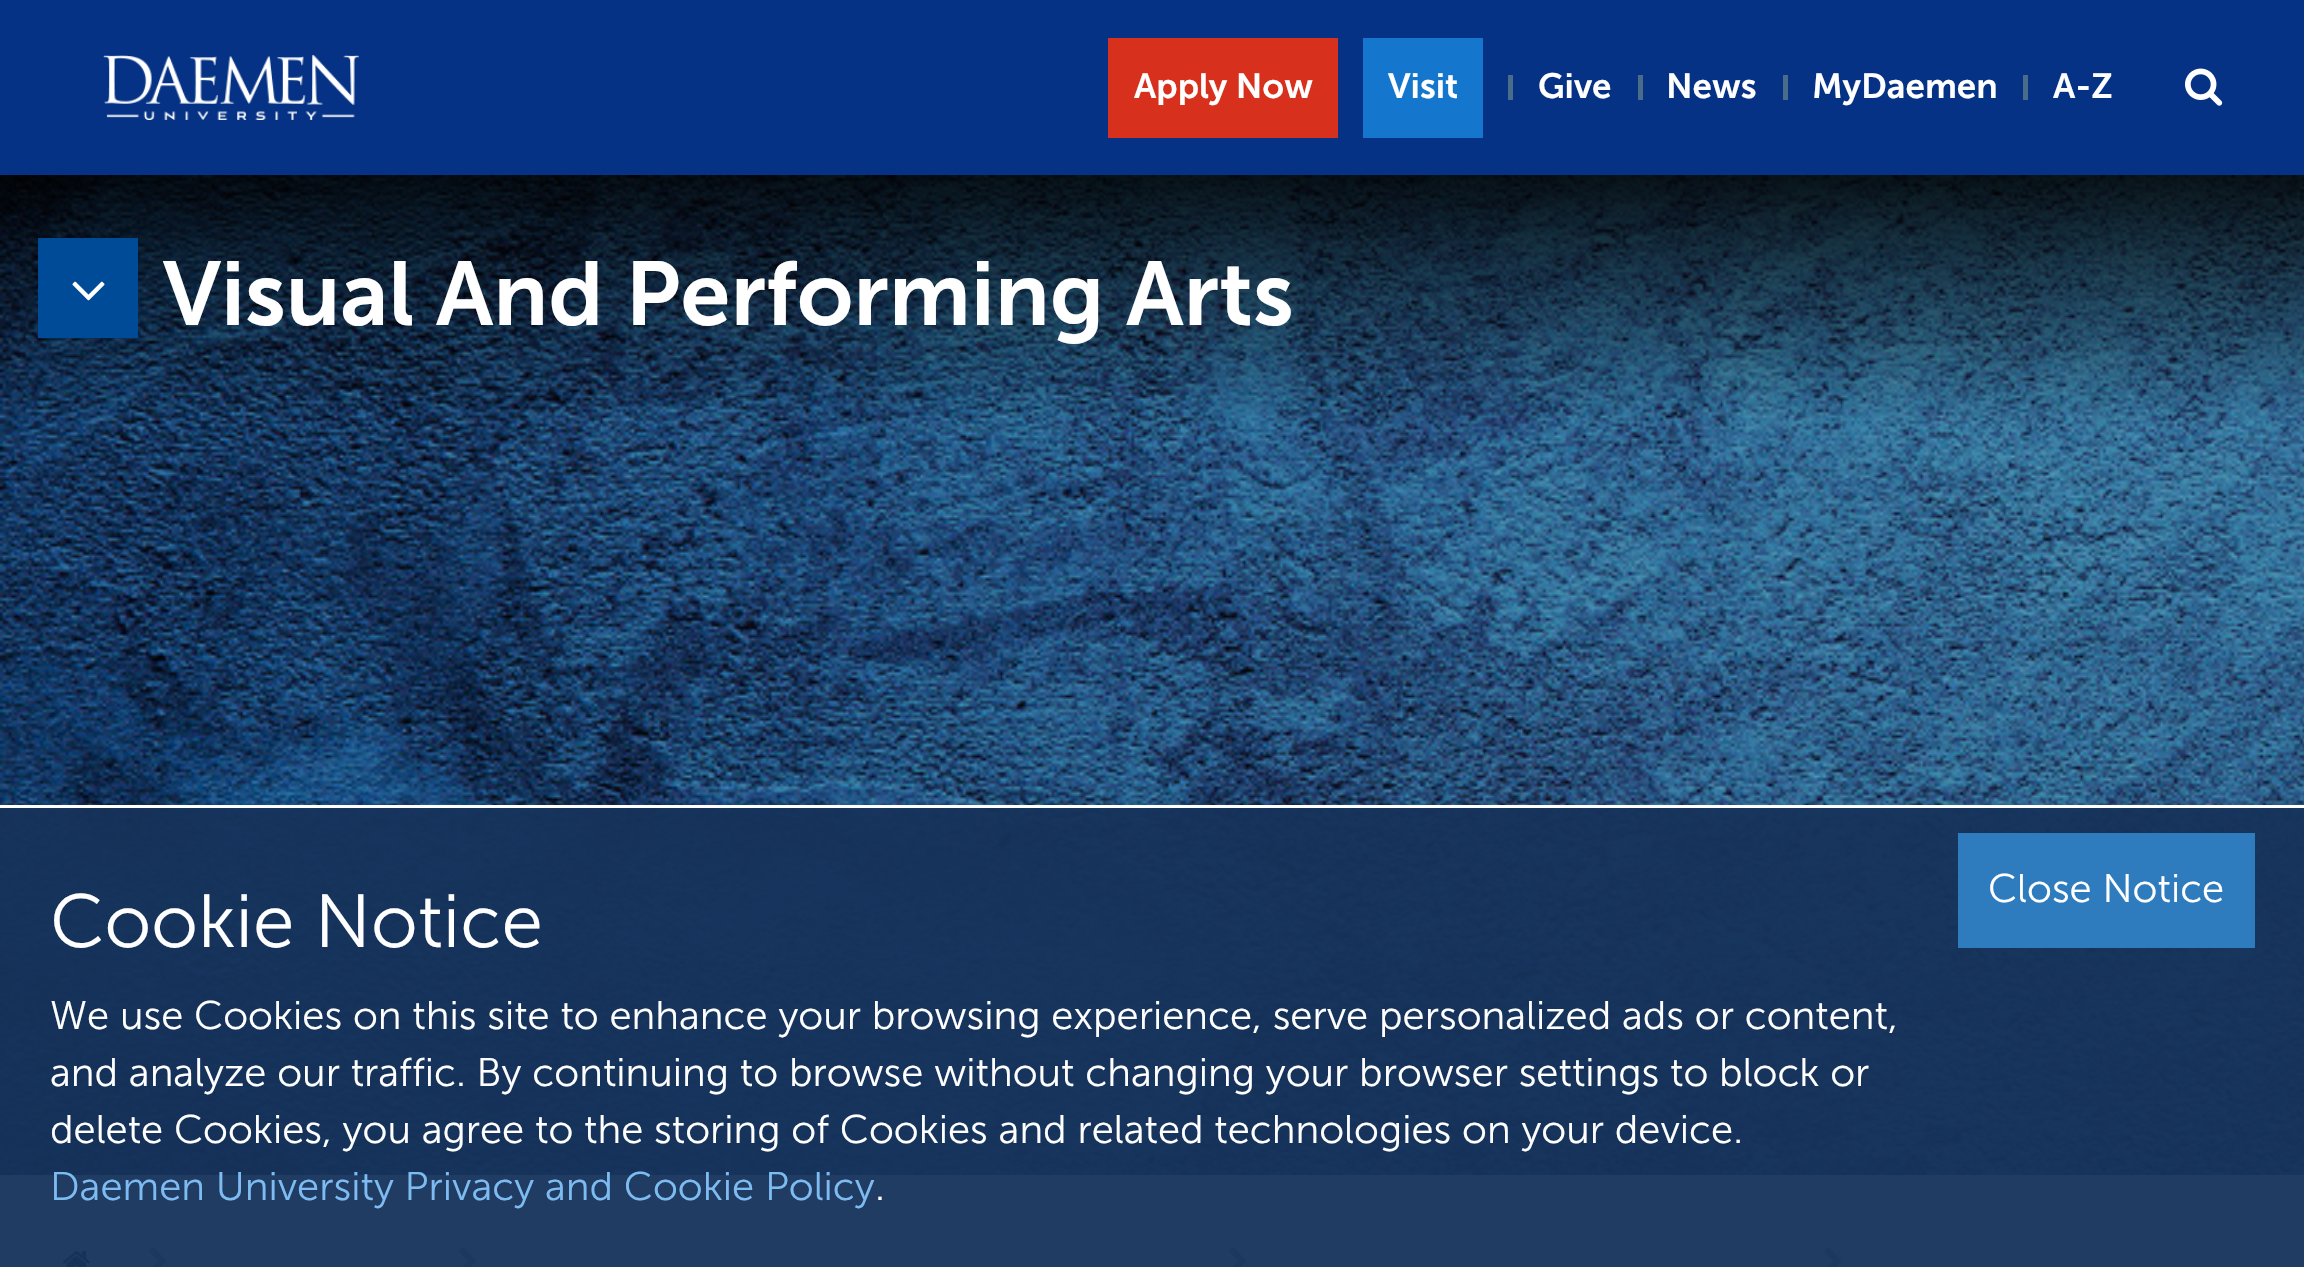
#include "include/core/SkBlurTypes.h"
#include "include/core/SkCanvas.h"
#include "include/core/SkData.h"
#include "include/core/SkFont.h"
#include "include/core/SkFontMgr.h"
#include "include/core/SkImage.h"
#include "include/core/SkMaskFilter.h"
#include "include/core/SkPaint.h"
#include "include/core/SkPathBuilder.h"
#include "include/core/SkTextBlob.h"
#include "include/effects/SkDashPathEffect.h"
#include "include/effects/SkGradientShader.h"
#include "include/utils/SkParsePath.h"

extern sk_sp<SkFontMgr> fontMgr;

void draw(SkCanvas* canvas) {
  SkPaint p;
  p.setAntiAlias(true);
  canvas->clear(SK_ColorWHITE);
  p.setColor(SkColorSetRGB(5, 50, 132));
  canvas->drawRect(SkRect::MakeLTRB(0, 0, 2304, 175), p);
  canvas->drawImageRect(SkImages::DeferredFromEncodedData(SkData::MakeFromFileName("images/1.png")), SkRect::MakeLTRB(103, 55, 359, 120), SkSamplingOptions());
  p.setColor(SkColorSetRGB(215, 48, 29));
  canvas->drawRect(SkRect::MakeLTRB(1108, 38, 1338, 138), p);
  p.setColor(SkColorSetRGB(20, 118, 204));
  canvas->drawRect(SkRect::MakeLTRB(1363, 38, 1483, 138), p);
  p.setColor(SkColorSetRGB(72, 108, 137));
  canvas->drawRect(SkRect::MakeLTRB(1508, 75, 1513, 100), p);
  canvas->drawRect(SkRect::MakeLTRB(1638, 75, 1643, 100), p);
  canvas->drawRect(SkRect::MakeLTRB(1783, 75, 1788, 100), p);
  canvas->drawRect(SkRect::MakeLTRB(2023, 75, 2028, 100), p);
  canvas->drawImageRect(SkImages::DeferredFromEncodedData(SkData::MakeFromFileName("images/2.png")), SkRect::MakeLTRB(2185, 68, 2223, 106), SkSamplingOptions());
  canvas->drawImageRect(SkImages::DeferredFromEncodedData(SkData::MakeFromFileName("images/3.png")), SkRect::MakeLTRB(0, 175, 2304, 1175), SkSamplingOptions());
  p.setColor(SkColorSetRGB(0, 75, 152));
  canvas->drawRect(SkRect::MakeLTRB(38, 238, 138, 338), p);
  canvas->drawImageRect(SkImages::DeferredFromEncodedData(SkData::MakeFromFileName("images/4.png")), SkRect::MakeLTRB(72, 281, 105, 301), SkSamplingOptions());
  p.setColor(SkColorSetRGB(241, 241, 239));
  canvas->drawRect(SkRect::MakeLTRB(0, 1193, 2304, 1267), p);
  canvas->drawImageRect(SkImages::DeferredFromEncodedData(SkData::MakeFromFileName("images/5.png")), SkRect::MakeLTRB(63, 1251, 90, 1267), SkSamplingOptions());
  canvas->drawImageRect(SkImages::DeferredFromEncodedData(SkData::MakeFromFileName("images/6.png")), SkRect::MakeLTRB(149, 1247, 167, 1267), SkSamplingOptions());
  canvas->drawImageRect(SkImages::DeferredFromEncodedData(SkData::MakeFromFileName("images/6.png")), SkRect::MakeLTRB(459, 1247, 477, 1267), SkSamplingOptions());
  canvas->drawImageRect(SkImages::DeferredFromEncodedData(SkData::MakeFromFileName("images/6.png")), SkRect::MakeLTRB(1229, 1247, 1247, 1267), SkSamplingOptions());
  canvas->drawImageRect(SkImages::DeferredFromEncodedData(SkData::MakeFromFileName("images/6.png")), SkRect::MakeLTRB(1824, 1247, 1842, 1267), SkSamplingOptions());
  p.setColor(SkColorSetARGB(242, 21, 49, 90));
  canvas->drawRect(SkRect::MakeLTRB(0, 808, 2304, 1267), p);
  p.setColor(SK_ColorWHITE);
  canvas->drawRect(SkRect::MakeLTRB(0, 805, 2304, 808), p);
  p.setColor(SkColorSetRGB(46, 123, 190));
  canvas->drawRect(SkRect::MakeLTRB(1958, 833, 2255, 948), p);
  SkFont font1(fontMgr->matchFamilyStyle("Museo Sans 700", SkFontStyle(600, SkFontStyle::kNormal_Width, SkFontStyle::kUpright_Slant)), 35);
  font1.setSubpixel(true);
  p.setColor(SK_ColorWHITE);
  canvas->drawString("Apply Now", 1134, 98, font1, p);
  canvas->drawString("Visit", 1388, 98, font1, p);
  canvas->drawString("Give", 1538, 98, font1, p);
  canvas->drawString("News", 1666, 98, font1, p);
  canvas->drawString("MyDaemen", 1812, 98, font1, p);
  canvas->drawString("A-Z", 2053, 98, font1, p);
  SkFont font2(fontMgr->matchFamilyStyle("Museo Sans 700", SkFontStyle(600, SkFontStyle::kNormal_Width, SkFontStyle::kUpright_Slant)), 90);
  font2.setSubpixel(true);
  canvas->drawString("Visual And Performing Arts", 163, 325, font2, p);
  SkFont font3(fontMgr->matchFamilyStyle("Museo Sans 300", SkFontStyle(300, SkFontStyle::kNormal_Width, SkFontStyle::kUpright_Slant)), 40);
  font3.setSubpixel(true);
  canvas->drawString("Close Notice", 1988, 902, font3, p);
  SkFont font4(fontMgr->matchFamilyStyle("Museo Sans 300", SkFontStyle(300, SkFontStyle::kNormal_Width, SkFontStyle::kUpright_Slant)), 75);
  font4.setSubpixel(true);
  canvas->drawString("Cookie Notice", 50, 947, font4, p);
  canvas->drawString("We use Cookies on this site to enhance your browsing experience, serve personalized ads or content,", 50, 1029, font3, p);
  canvas->drawString("and analyze our traffic. By continuing to browse without changing your browser settings to block or", 50, 1086, font3, p);
  canvas->drawString("delete Cookies, you agree to the storing of Cookies and related technologies on your device.", 50, 1143, font3, p);
  p.setColor(SkColorSetRGB(125, 188, 242));
  canvas->drawString("Daemen University Privacy and Cookie Policy", 50, 1200, font3, p);
  p.setColor(SK_ColorWHITE);
  canvas->drawString(".", 875, 1200, font3, p);
}
